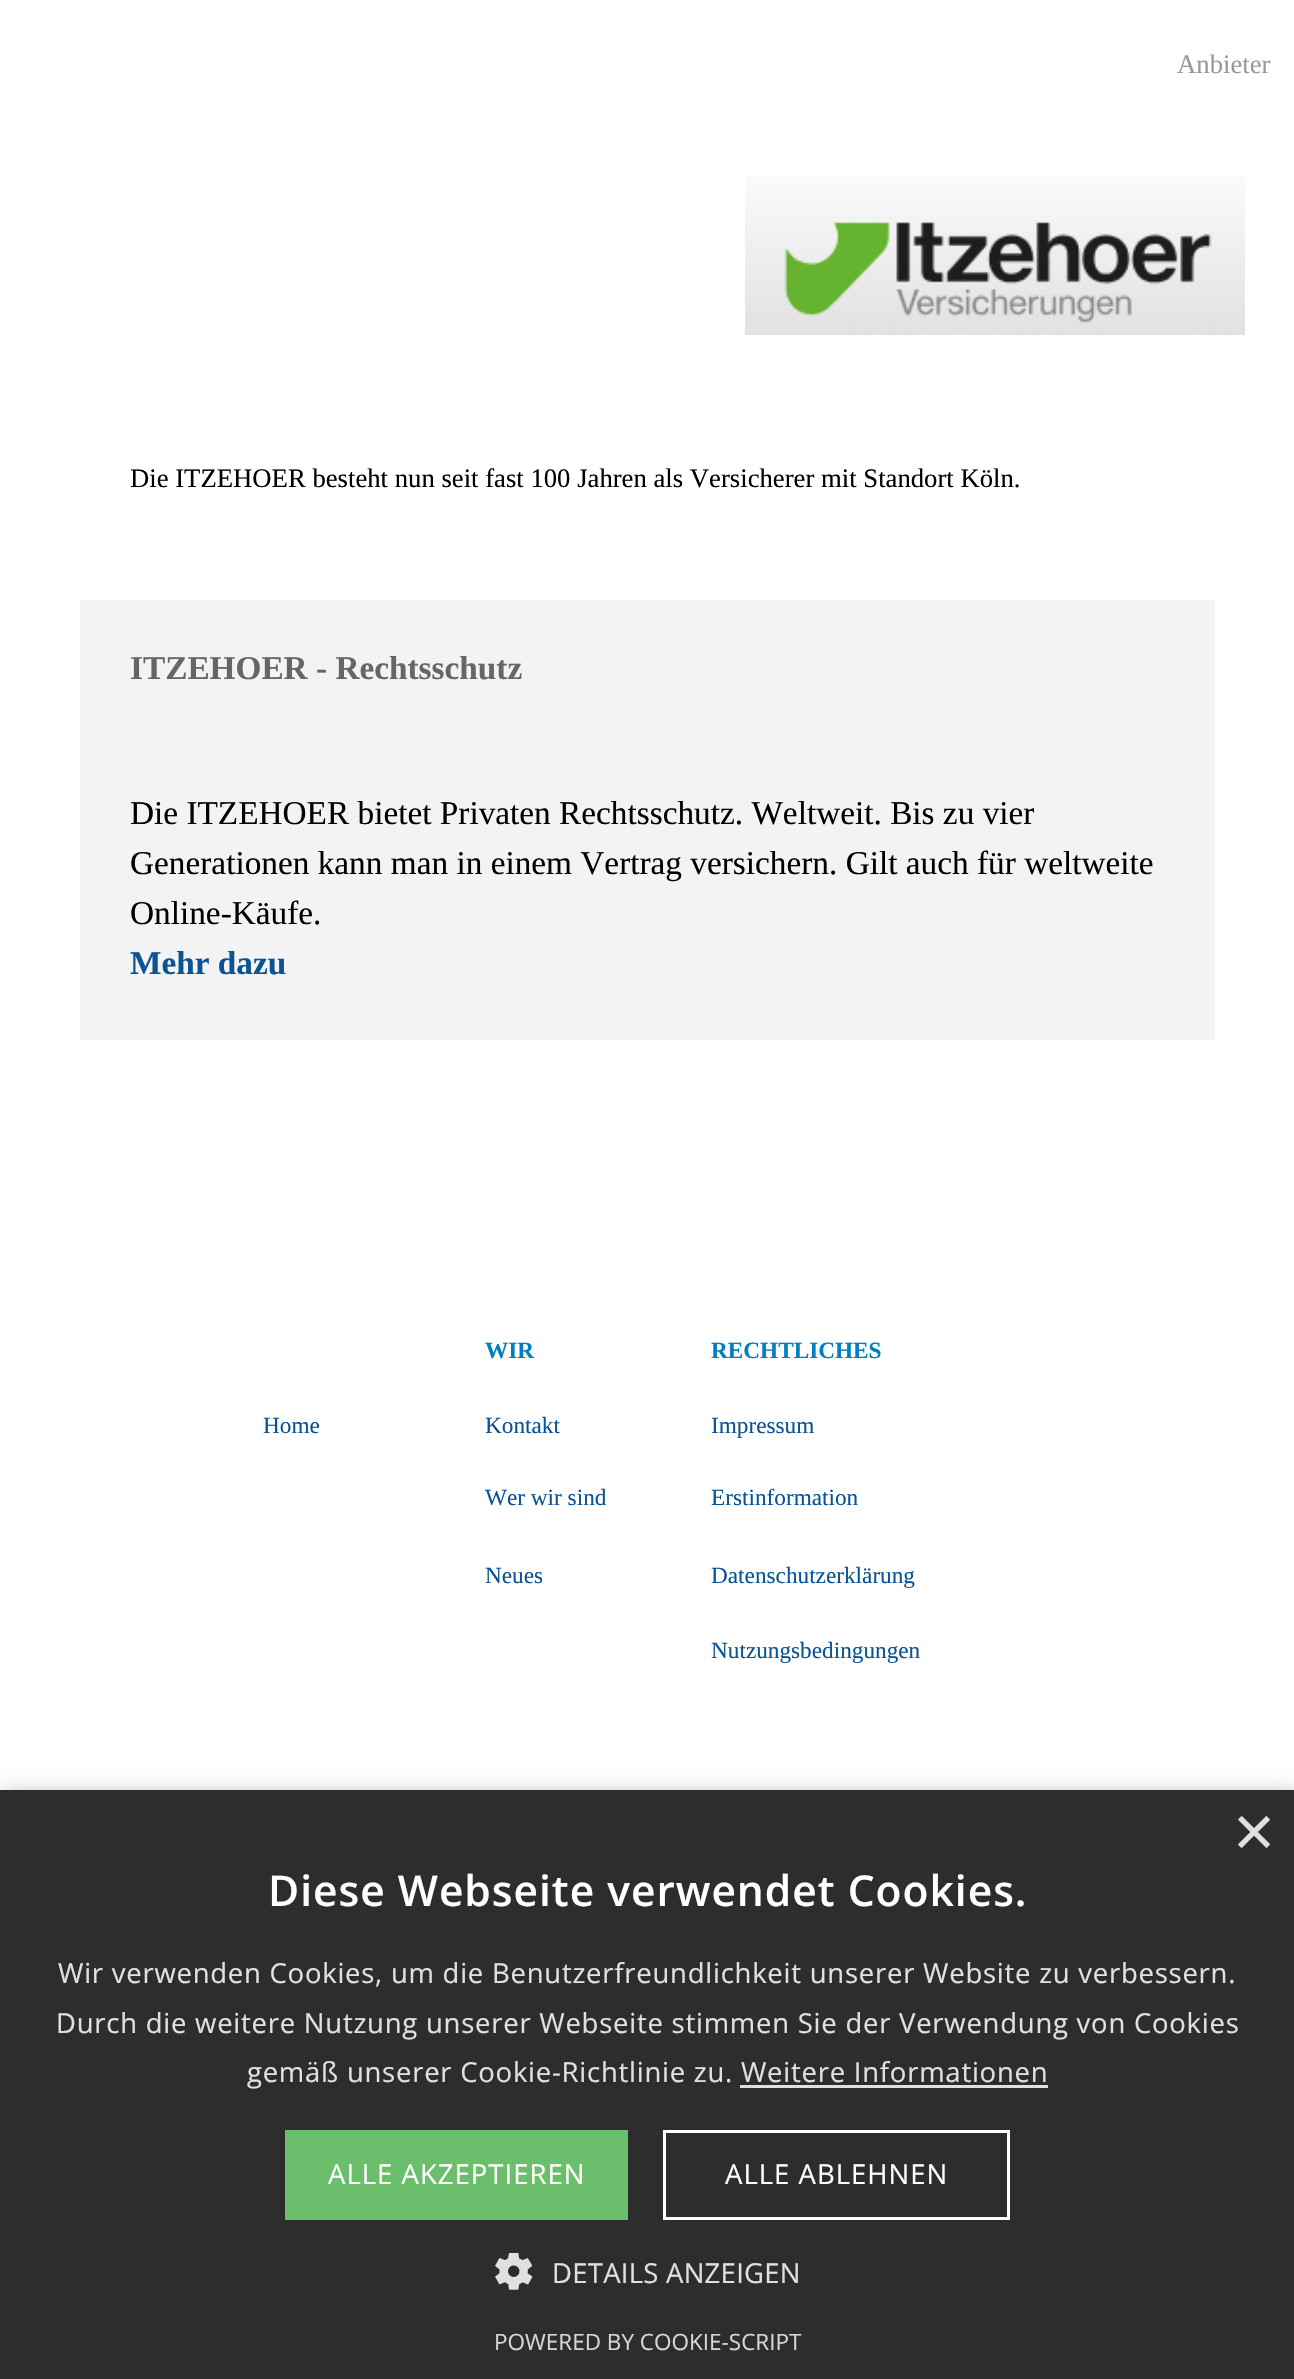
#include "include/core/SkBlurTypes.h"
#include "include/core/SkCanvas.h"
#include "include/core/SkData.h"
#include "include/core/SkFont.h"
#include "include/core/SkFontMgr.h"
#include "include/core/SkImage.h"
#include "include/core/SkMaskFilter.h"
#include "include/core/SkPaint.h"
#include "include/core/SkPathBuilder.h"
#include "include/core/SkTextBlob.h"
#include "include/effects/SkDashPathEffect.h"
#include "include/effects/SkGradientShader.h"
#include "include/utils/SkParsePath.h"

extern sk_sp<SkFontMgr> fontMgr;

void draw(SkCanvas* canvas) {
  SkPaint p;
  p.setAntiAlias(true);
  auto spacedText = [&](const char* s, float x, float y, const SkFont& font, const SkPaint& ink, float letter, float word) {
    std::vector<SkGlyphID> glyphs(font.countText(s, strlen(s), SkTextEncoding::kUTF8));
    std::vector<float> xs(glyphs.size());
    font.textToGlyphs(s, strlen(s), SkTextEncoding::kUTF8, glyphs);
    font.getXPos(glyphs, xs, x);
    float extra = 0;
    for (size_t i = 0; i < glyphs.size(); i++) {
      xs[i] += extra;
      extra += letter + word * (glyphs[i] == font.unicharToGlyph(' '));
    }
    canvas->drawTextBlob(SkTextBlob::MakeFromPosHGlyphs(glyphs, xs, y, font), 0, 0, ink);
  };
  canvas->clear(SK_ColorWHITE);
  canvas->drawImageRect(SkImages::DeferredFromEncodedData(SkData::MakeFromFileName("images/1.png")), SkRect::MakeLTRB(745, 176, 1245, 335), SkSamplingOptions());
  p.setColor(SkColorSetRGB(243, 243, 243));
  canvas->drawRect(SkRect::MakeLTRB(80, 600, 1215, 1040), p);
  p.setColor(SkColorSetARGB(89, 0, 0, 0));
  p.setMaskFilter(SkMaskFilter::MakeBlur(kNormal_SkBlurStyle, 10));
  canvas->drawRect(SkRect::MakeLTRB(3, 1795, 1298, 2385), p);
  p.setMaskFilter(nullptr);
  p.setColor(SkColorSetRGB(45, 45, 45));
  canvas->drawRect(SkRect::MakeLTRB(0, 1790, 1294, 2379), p);
  p.setColor(SkColorSetRGB(224, 224, 224));
  canvas->drawRect(SkRect::MakeLTRB(740, 2085, 1048, 2088), p);
  p.setColor(SkColorSetRGB(107, 190, 107));
  canvas->drawRect(SkRect::MakeLTRB(285, 2130, 628, 2220), p);
  p.setStyle(SkPaint::kStroke_Style);
  p.setStrokeWidth(3);
  p.setColor(SK_ColorWHITE);
  canvas->drawRect(SkRect::MakeLTRB(664.5f, 2131.5f, 1008.5f, 2218.5f), p);
  canvas->drawImageRect(SkImages::DeferredFromEncodedData(SkData::MakeFromFileName("images/2.png")), SkRect::MakeLTRB(495, 2253, 533, 2290), SkSamplingOptions());
  SkFont font1(fontMgr->matchFamilyStyle("Liberation Serif", SkFontStyle::Normal()), 26.7f);
  font1.setSubpixel(true);
  p.setStyle(SkPaint::kFill_Style);
  p.setColor(SkColorSetRGB(153, 153, 153));
  canvas->drawString("Anbieter", 1177, 73, font1, p);
  p.setColor(SK_ColorBLACK);
  canvas->drawString("Die ITZEHOER besteht nun seit fast 100 Jahren als Versicherer mit Standort Köln.", 130, 487, font1, p);
  SkFont font2(fontMgr->matchFamilyStyle("Liberation Serif", SkFontStyle::Bold()), 33.3f);
  font2.setSubpixel(true);
  p.setColor(SkColorSetRGB(102, 102, 102));
  canvas->drawString("ITZEHOER - Rechtsschutz", 130, 679, font2, p);
  SkFont font3(fontMgr->matchFamilyStyle("Liberation Serif", SkFontStyle::Normal()), 33.3f);
  font3.setSubpixel(true);
  p.setColor(SK_ColorBLACK);
  canvas->drawString("Die ITZEHOER bietet Privaten Rechtsschutz. Weltweit. Bis zu vier", 130, 824, font3, p);
  canvas->drawString("Generationen kann man in einem Vertrag versichern. Gilt auch für weltweite", 130, 874, font3, p);
  canvas->drawString("Online-Käufe.", 130, 924, font3, p);
  p.setColor(SkColorSetRGB(11, 83, 148));
  canvas->drawString("Mehr dazu", 130, 974, font2, p);
  SkFont font4(fontMgr->matchFamilyStyle("Liberation Serif", SkFontStyle::Bold()), 23.25f);
  font4.setSubpixel(true);
  p.setColor(SkColorSetRGB(0, 128, 192));
  canvas->drawString("WIR", 485, 1358, font4, p);
  canvas->drawString("RECHTLICHES", 711, 1358, font4, p);
  SkFont font5(fontMgr->matchFamilyStyle("Liberation Serif", SkFontStyle::Normal()), 23.25f);
  font5.setSubpixel(true);
  p.setColor(SkColorSetRGB(11, 83, 148));
  canvas->drawString("Home", 263, 1433, font5, p);
  canvas->drawString("Kontakt", 485, 1433, font5, p);
  canvas->drawString("Impressum", 711, 1433, font5, p);
  canvas->drawString("Wer wir sind", 485, 1505, font5, p);
  canvas->drawString("Erstinformation", 711, 1505, font5, p);
  canvas->drawString("Neues", 485, 1583, font5, p);
  canvas->drawString("Datenschutzerklärung", 711, 1583, font5, p);
  canvas->drawString("Nutzungsbedingungen", 711, 1658, font5, p);
  SkFont font6(fontMgr->matchFamilyStyle("Liberation Sans", SkFontStyle::Normal()), 72);
  font6.setSubpixel(true);
  p.setColor(SkColorSetRGB(224, 224, 224));
  canvas->drawString("×", 1233, 1856, font6, p);
  SkFont font7(fontMgr->matchFamilyStyle("Open Sans", SkFontStyle(600, SkFontStyle::kNormal_Width, SkFontStyle::kUpright_Slant)), 42.5f);
  font7.setSubpixel(true);
  p.setColor(SK_ColorWHITE);
  spacedText("Diese Webseite verwendet Cookies.", 268, 1906, font7, p, 1, 0);
  SkFont font8(fontMgr->matchFamilyStyle("Open Sans", SkFontStyle::Normal()), 27.5f);
  font8.setSubpixel(true);
  p.setColor(SkColorSetRGB(224, 224, 224));
  spacedText("Wir verwenden Cookies, um die Benutzerfreundlichkeit unserer Website zu verbessern.", 58, 1983, font8, p, 0.75f, 0);
  spacedText("Durch die weitere Nutzung unserer Webseite stimmen Sie der Verwendung von Cookies", 56, 2033, font8, p, 0.75f, 0);
  spacedText("gemäß unserer Cookie-Richtlinie zu. Weitere Informationen", 247, 2082, font8, p, 0.75f, 0);
  p.setColor(SK_ColorWHITE);
  spacedText("ALLE AKZEPTIEREN", 328, 2184, font8, p, 1, 0);
  spacedText("ALLE ABLEHNEN", 725, 2184, font8, p, 1, 0);
  p.setColor(SkColorSetRGB(224, 224, 224));
  spacedText("DETAILS ANZEIGEN", 552, 2283, font8, p, 0.25f, 0);
  SkFont font9(fontMgr->matchFamilyStyle("Open Sans", SkFontStyle::Normal()), 22.5f);
  font9.setSubpixel(true);
  p.setColor(SkColorSetRGB(213, 213, 213));
  canvas->drawString("POWERED BY COOKIE-SCRIPT", 494, 2350, font9, p);
}
